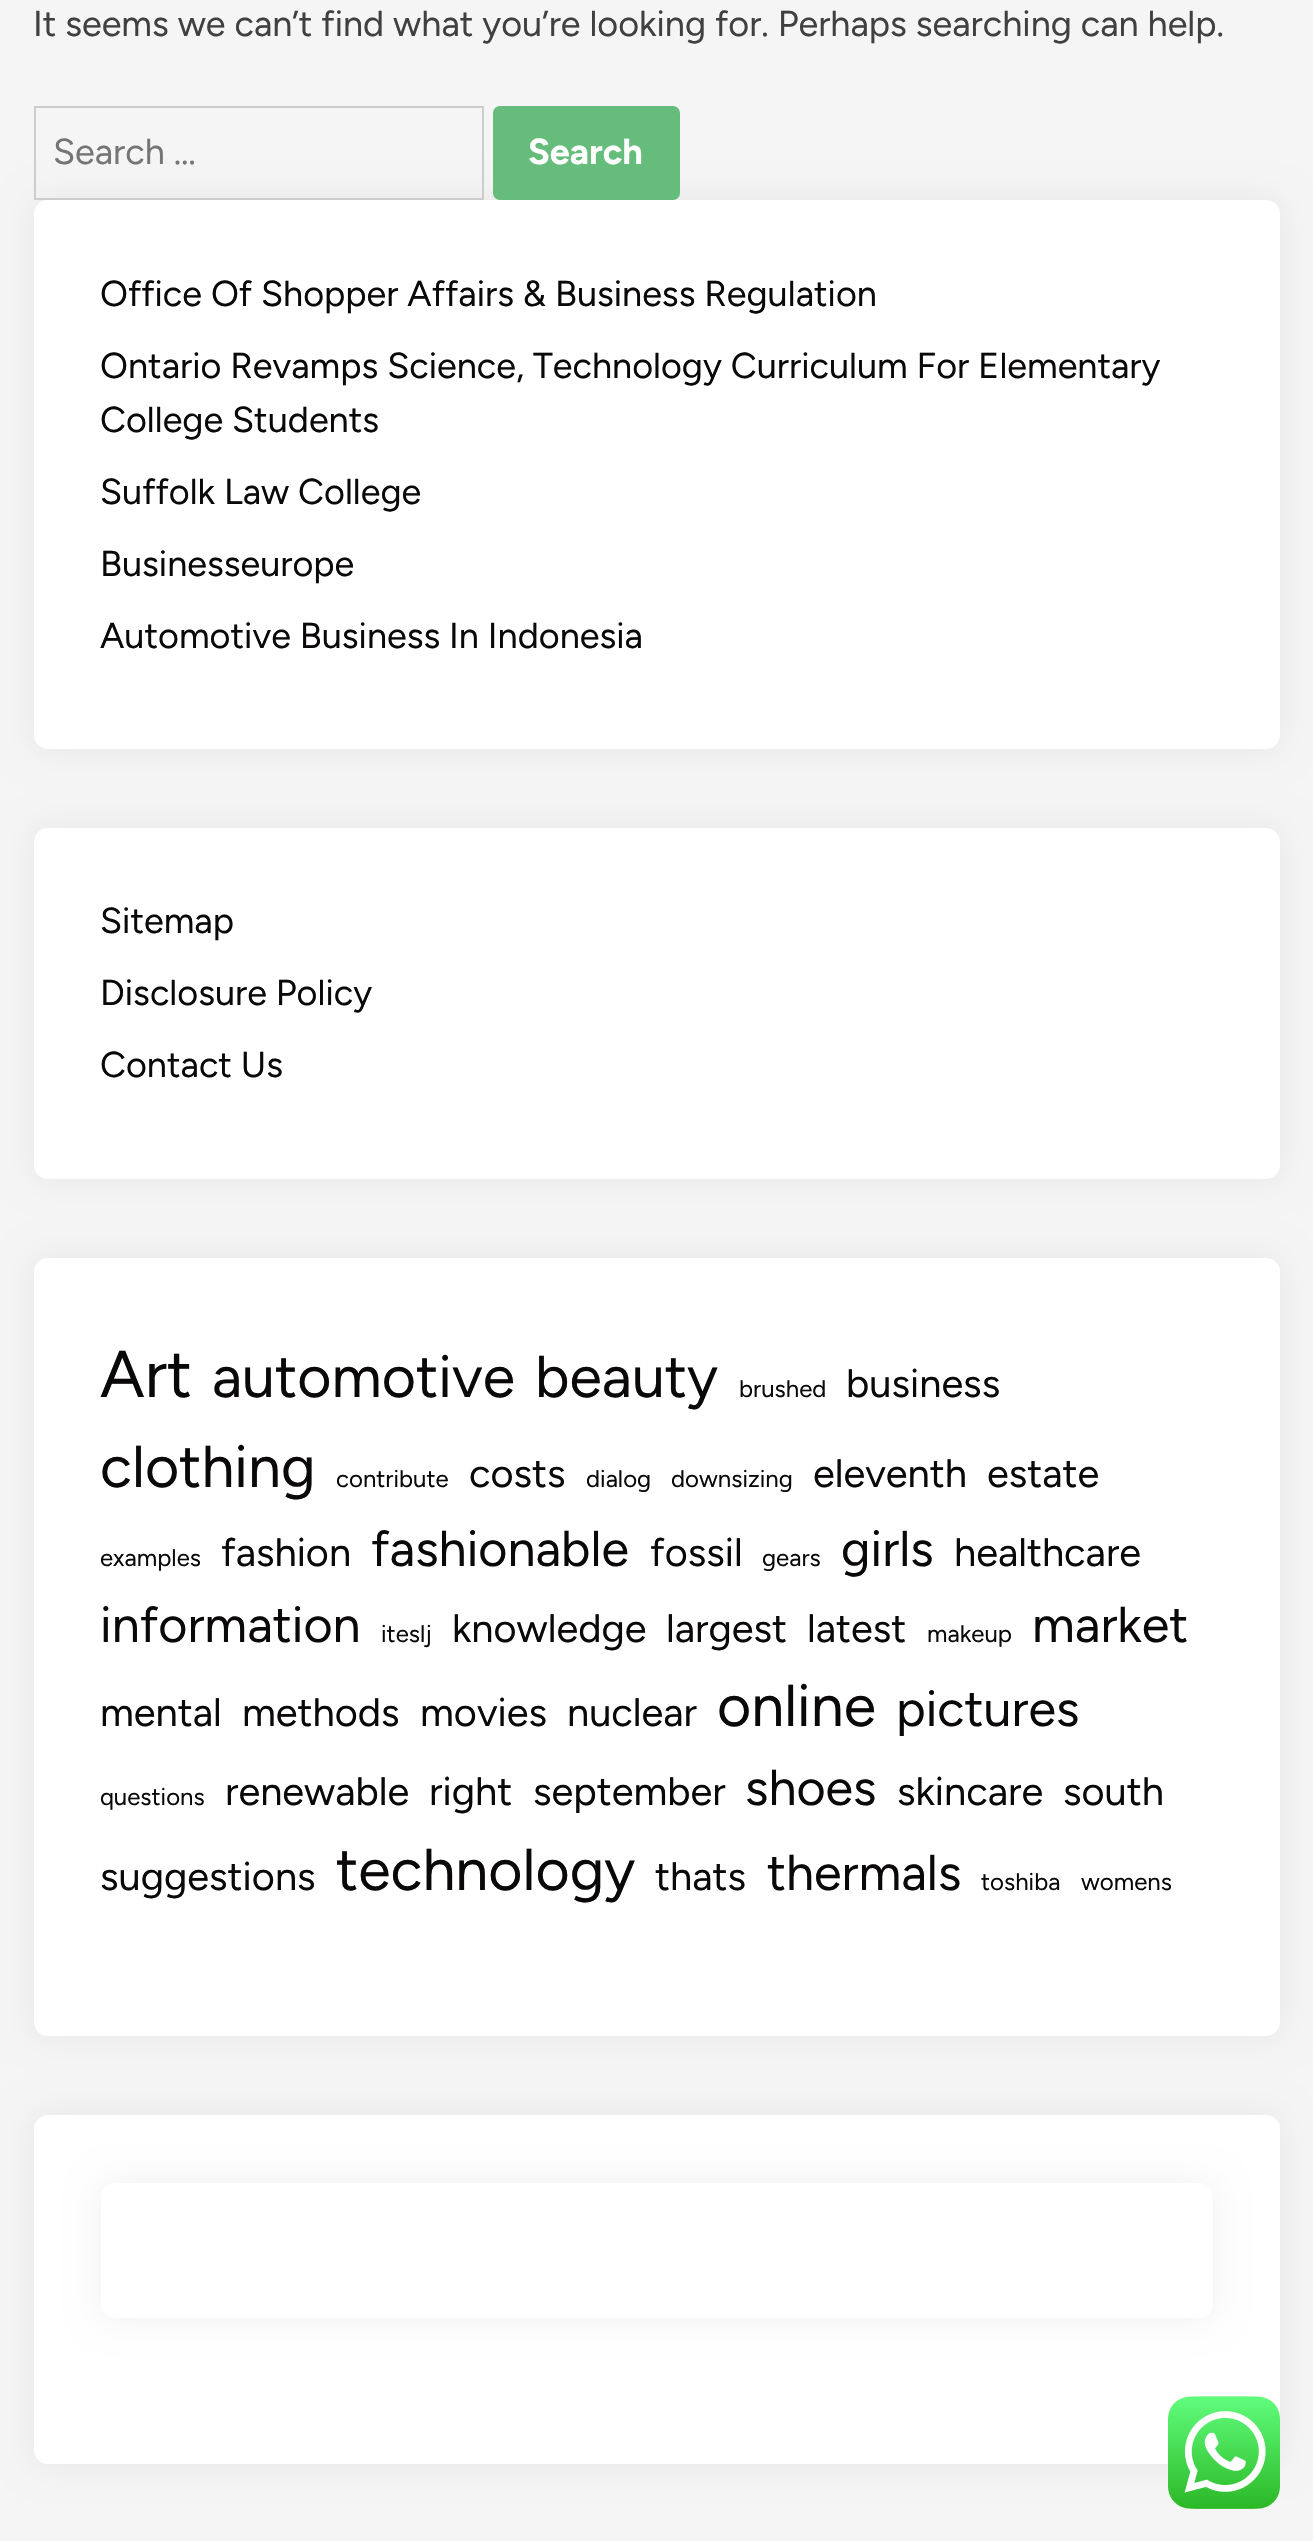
#include "include/core/SkBlurTypes.h"
#include "include/core/SkCanvas.h"
#include "include/core/SkData.h"
#include "include/core/SkFont.h"
#include "include/core/SkFontMgr.h"
#include "include/core/SkImage.h"
#include "include/core/SkMaskFilter.h"
#include "include/core/SkPaint.h"
#include "include/core/SkPathBuilder.h"
#include "include/core/SkTextBlob.h"
#include "include/effects/SkDashPathEffect.h"
#include "include/effects/SkGradientShader.h"
#include "include/utils/SkParsePath.h"

extern sk_sp<SkFontMgr> fontMgr;

void draw(SkCanvas* canvas) {
  SkPaint p;
  p.setAntiAlias(true);
  canvas->clear(SkColorSetRGB(245, 245, 245));
  p.setColor(SkColorSetARGB(15, 0, 0, 0));
  p.setMaskFilter(SkMaskFilter::MakeBlur(kNormal_SkBlurStyle, 17));
  canvas->drawRoundRect(SkRect::MakeLTRB(34, 200, 1280, 749), 14, 14, p);
  p.setMaskFilter(nullptr);
  p.setStyle(SkPaint::kStroke_Style);
  p.setStrokeWidth(2);
  p.setColor(SkColorSetRGB(204, 204, 204));
  canvas->drawRect(SkRect::MakeLTRB(35, 107, 483, 199), p);
  p.setStyle(SkPaint::kFill_Style);
  p.setColor(SkColorSetRGB(101, 188, 123));
  canvas->drawRoundRect(SkRect::MakeLTRB(493, 106, 680, 200), 7, 7, p);
  p.setColor(SK_ColorWHITE);
  canvas->drawRoundRect(SkRect::MakeLTRB(34, 200, 1280, 749), 14, 14, p);
  p.setColor(SkColorSetARGB(15, 0, 0, 0));
  p.setMaskFilter(SkMaskFilter::MakeBlur(kNormal_SkBlurStyle, 17));
  canvas->drawRoundRect(SkRect::MakeLTRB(34, 828, 1280, 1179), 14, 14, p);
  p.setMaskFilter(nullptr);
  p.setColor(SK_ColorWHITE);
  canvas->drawRoundRect(SkRect::MakeLTRB(34, 828, 1280, 1179), 14, 14, p);
  p.setColor(SkColorSetARGB(15, 0, 0, 0));
  p.setMaskFilter(SkMaskFilter::MakeBlur(kNormal_SkBlurStyle, 17));
  canvas->drawRoundRect(SkRect::MakeLTRB(34, 1258, 1280, 2036), 14, 14, p);
  p.setMaskFilter(nullptr);
  p.setColor(SK_ColorWHITE);
  canvas->drawRoundRect(SkRect::MakeLTRB(34, 1258, 1280, 2036), 14, 14, p);
  p.setColor(SkColorSetARGB(15, 0, 0, 0));
  p.setMaskFilter(SkMaskFilter::MakeBlur(kNormal_SkBlurStyle, 17));
  canvas->drawRoundRect(SkRect::MakeLTRB(34, 2115, 1280, 2464), 14, 14, p);
  p.setMaskFilter(nullptr);
  p.setColor(SK_ColorWHITE);
  canvas->drawRoundRect(SkRect::MakeLTRB(34, 2115, 1280, 2464), 14, 14, p);
  p.setColor(SkColorSetARGB(15, 0, 0, 0));
  p.setMaskFilter(SkMaskFilter::MakeBlur(kNormal_SkBlurStyle, 17));
  canvas->drawRoundRect(SkRect::MakeLTRB(101, 2183, 1213, 2318), 14, 14, p);
  p.setMaskFilter(nullptr);
  p.setColor(SK_ColorWHITE);
  canvas->drawRoundRect(SkRect::MakeLTRB(101, 2183, 1213, 2318), 14, 14, p);
  canvas->drawImageRect(SkImages::DeferredFromEncodedData(SkData::MakeFromFileName("images/1.png")), SkRect::MakeLTRB(1168, 2396, 1280, 2509), SkSamplingOptions());
  SkFont font1(fontMgr->matchFamilyStyle("Figtree", SkFontStyle::Normal()), 36);
  font1.setSubpixel(true);
  p.setColor(SkColorSetRGB(64, 64, 64));
  canvas->drawString("It seems we can’t find what you’re looking for. Perhaps searching can help.", 33, 36, font1, p);
  p.setColor(SkColorSetRGB(117, 117, 117));
  canvas->drawString("Search …", 53, 164, font1, p);
  SkFont font2(fontMgr->matchFamilyStyle("Figtree", SkFontStyle::Bold()), 36);
  font2.setSubpixel(true);
  p.setColor(SK_ColorWHITE);
  canvas->drawString("Search", 528, 164, font2, p);
  p.setColor(SkColorSetRGB(10, 8, 8));
  canvas->drawString("Office Of Shopper Affairs & Business Regulation", 100, 306, font1, p);
  canvas->drawString("Ontario Revamps Science, Technology Curriculum For Elementary", 100, 378, font1, p);
  canvas->drawString("College Students", 100, 432, font1, p);
  canvas->drawString("Suffolk Law College", 100, 504, font1, p);
  canvas->drawString("Businesseurope", 100, 576, font1, p);
  canvas->drawString("Automotive Business In Indonesia", 100, 648, font1, p);
  canvas->drawString("Sitemap", 100, 933, font1, p);
  canvas->drawString("Disclosure Policy", 100, 1005, font1, p);
  canvas->drawString("Contact Us", 100, 1077, font1, p);
  SkFont font3(fontMgr->matchFamilyStyle("Figtree", SkFontStyle::Normal()), 66);
  font3.setSubpixel(true);
  canvas->drawString("Art", 100, 1397, font3, p);
  SkFont font4(fontMgr->matchFamilyStyle("Figtree", SkFontStyle::Normal()), 59);
  font4.setSubpixel(true);
  canvas->drawString("automotive", 212, 1397, font4, p);
  canvas->drawString("beauty", 535, 1397, font4, p);
  SkFont font5(fontMgr->matchFamilyStyle("Figtree", SkFontStyle::Normal()), 24);
  font5.setSubpixel(true);
  canvas->drawString("brushed", 739, 1397, font5, p);
  SkFont font6(fontMgr->matchFamilyStyle("Figtree", SkFontStyle::Normal()), 39.75f);
  font6.setSubpixel(true);
  canvas->drawString("business", 846, 1397, font6, p);
  canvas->drawString("clothing", 100, 1487, font4, p);
  canvas->drawString("contribute", 336, 1487, font5, p);
  canvas->drawString("costs", 469, 1487, font6, p);
  canvas->drawString("dialog", 586, 1487, font5, p);
  canvas->drawString("downsizing", 671, 1487, font5, p);
  canvas->drawString("eleventh", 813, 1487, font6, p);
  canvas->drawString("estate", 987, 1487, font6, p);
  canvas->drawString("examples", 100, 1566, font5, p);
  canvas->drawString("fashion", 221, 1566, font6, p);
  SkFont font7(fontMgr->matchFamilyStyle("Figtree", SkFontStyle::Normal()), 50.25f);
  font7.setSubpixel(true);
  canvas->drawString("fashionable", 371, 1566, font7, p);
  canvas->drawString("fossil", 650, 1566, font6, p);
  canvas->drawString("gears", 762, 1566, font5, p);
  canvas->drawString("girls", 841, 1566, font7, p);
  canvas->drawString("healthcare", 954, 1566, font6, p);
  canvas->drawString("information", 100, 1642, font7, p);
  canvas->drawString("iteslj", 381, 1642, font5, p);
  canvas->drawString("knowledge", 452, 1642, font6, p);
  canvas->drawString("largest", 666, 1642, font6, p);
  canvas->drawString("latest", 807, 1642, font6, p);
  canvas->drawString("makeup", 927, 1642, font5, p);
  canvas->drawString("market", 1032, 1642, font7, p);
  canvas->drawString("mental", 100, 1726, font6, p);
  canvas->drawString("methods", 242, 1726, font6, p);
  canvas->drawString("movies", 420, 1726, font6, p);
  canvas->drawString("nuclear", 567, 1726, font6, p);
  canvas->drawString("online", 717, 1726, font4, p);
  canvas->drawString("pictures", 896, 1726, font7, p);
  canvas->drawString("questions", 100, 1805, font5, p);
  canvas->drawString("renewable", 225, 1805, font6, p);
  canvas->drawString("right", 429, 1805, font6, p);
  canvas->drawString("september", 533, 1805, font6, p);
  canvas->drawString("shoes", 745, 1805, font7, p);
  canvas->drawString("skincare", 897, 1805, font6, p);
  canvas->drawString("south", 1063, 1805, font6, p);
  canvas->drawString("suggestions", 100, 1890, font6, p);
  canvas->drawString("technology", 336, 1890, font4, p);
  canvas->drawString("thats", 655, 1890, font6, p);
  canvas->drawString("thermals", 767, 1890, font7, p);
  canvas->drawString("toshiba", 981, 1890, font5, p);
  canvas->drawString("womens", 1081, 1890, font5, p);
}
